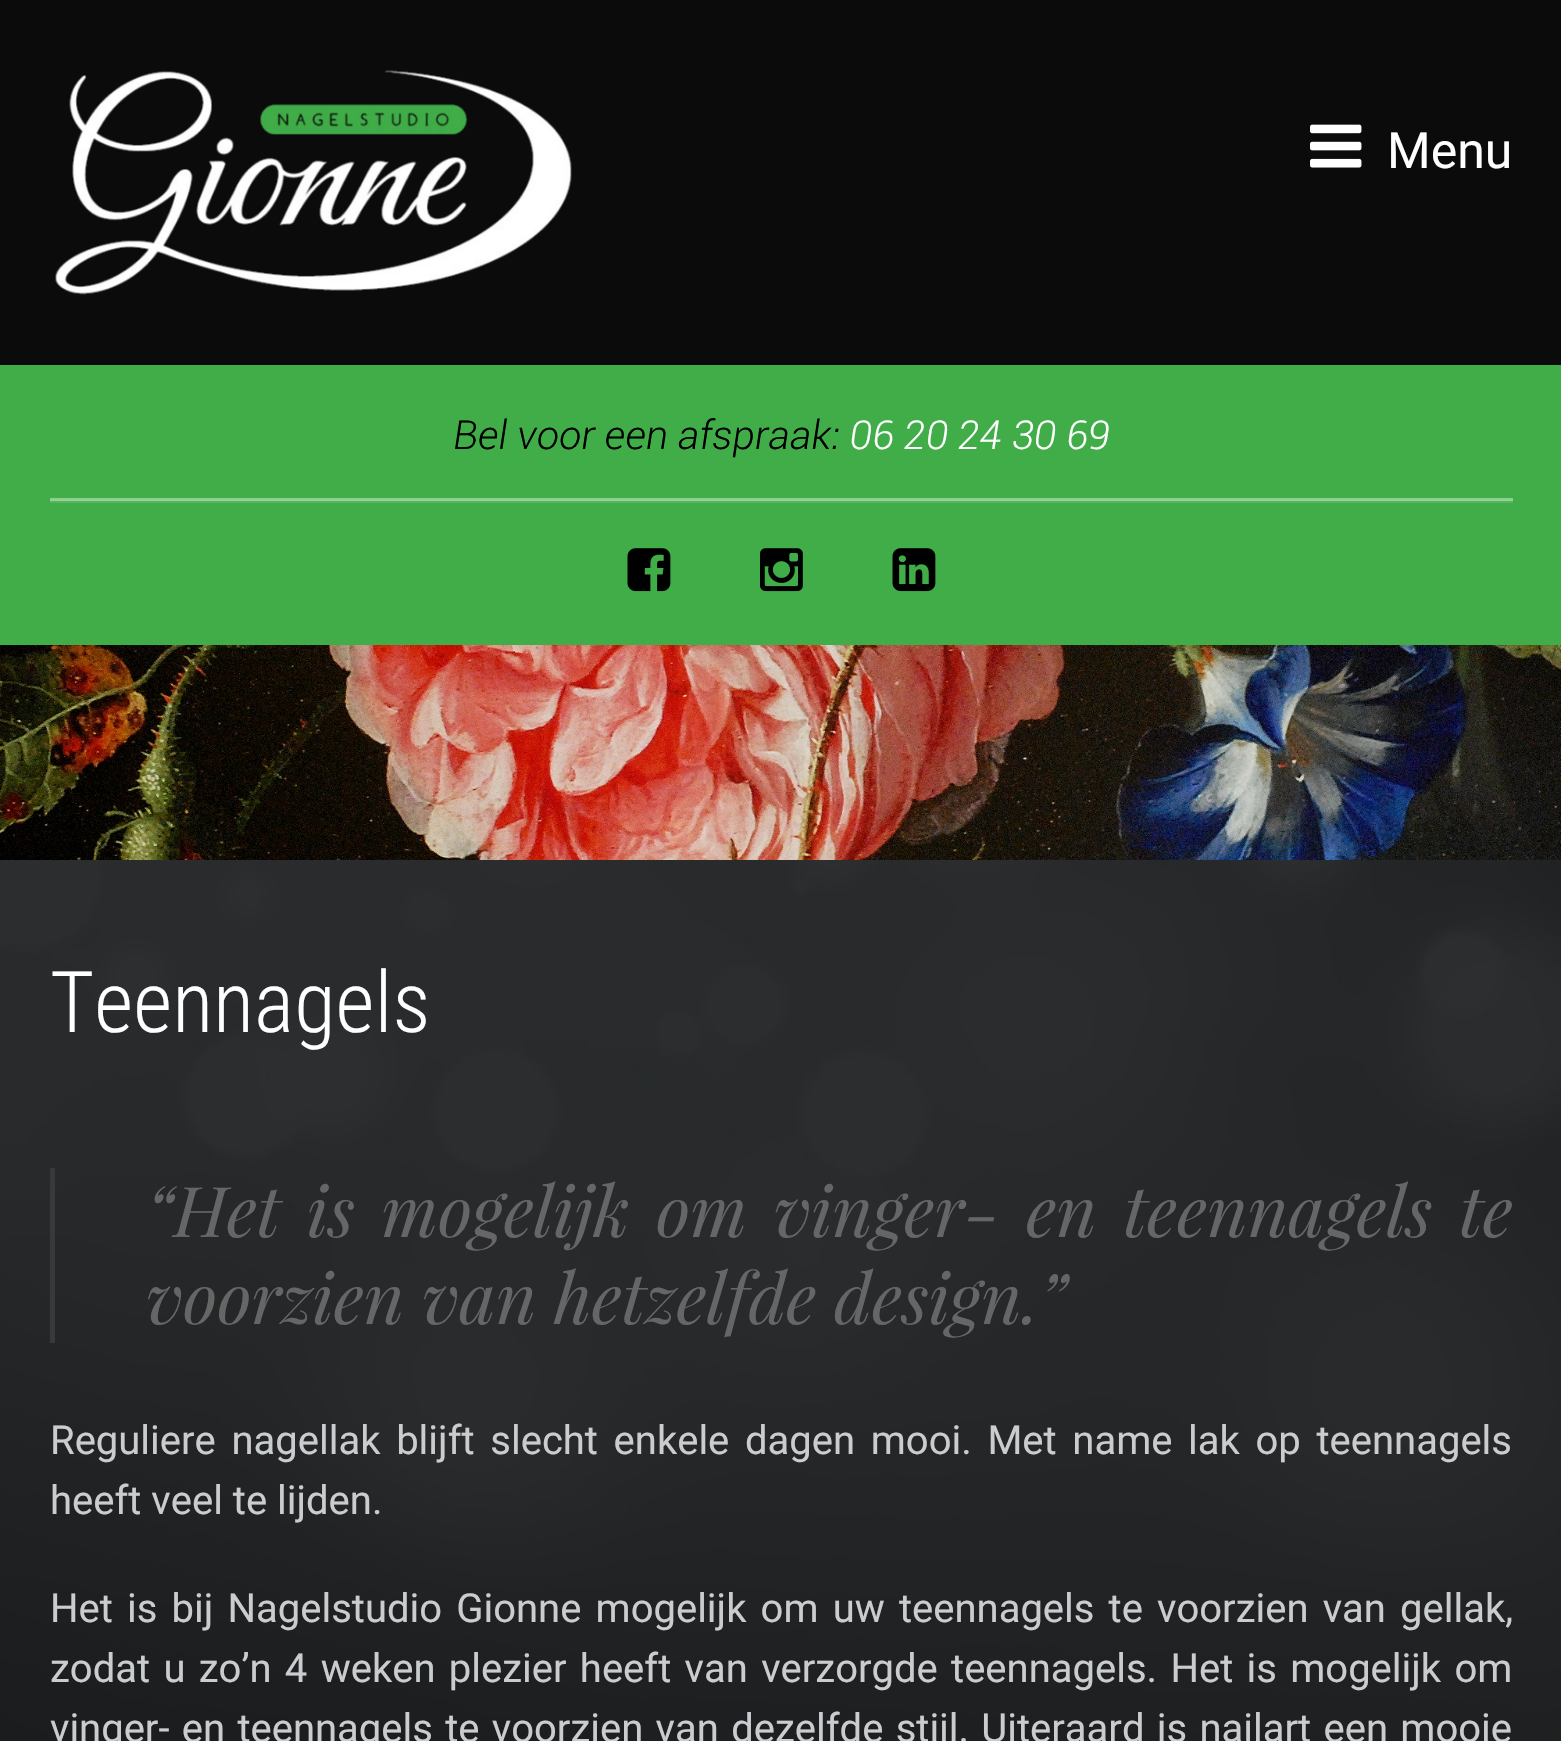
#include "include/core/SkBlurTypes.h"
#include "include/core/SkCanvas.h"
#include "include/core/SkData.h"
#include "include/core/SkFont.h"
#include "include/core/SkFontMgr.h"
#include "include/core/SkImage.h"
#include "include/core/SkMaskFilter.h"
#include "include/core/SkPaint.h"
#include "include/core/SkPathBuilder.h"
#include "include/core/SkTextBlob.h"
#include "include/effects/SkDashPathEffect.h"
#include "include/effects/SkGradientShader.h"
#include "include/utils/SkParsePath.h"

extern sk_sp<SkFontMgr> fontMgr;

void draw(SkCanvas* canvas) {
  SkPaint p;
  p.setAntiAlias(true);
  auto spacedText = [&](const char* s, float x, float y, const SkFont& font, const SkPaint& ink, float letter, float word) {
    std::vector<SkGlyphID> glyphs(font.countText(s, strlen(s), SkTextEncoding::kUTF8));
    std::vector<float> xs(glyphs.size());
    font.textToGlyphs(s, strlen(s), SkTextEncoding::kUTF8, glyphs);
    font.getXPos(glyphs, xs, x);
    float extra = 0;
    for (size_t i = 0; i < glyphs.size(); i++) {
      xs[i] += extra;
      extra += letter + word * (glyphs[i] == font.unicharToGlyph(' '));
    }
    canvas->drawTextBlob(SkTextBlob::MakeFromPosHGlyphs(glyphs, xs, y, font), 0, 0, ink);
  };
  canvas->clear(SkColorSetRGB(11, 11, 11));
  canvas->drawImageRect(SkImages::DeferredFromEncodedData(SkData::MakeFromFileName("images/1.png")), SkRect::MakeLTRB(55, 70, 572, 295), SkSamplingOptions());
  canvas->drawImageRect(SkImages::DeferredFromEncodedData(SkData::MakeFromFileName("images/2.png")), SkRect::MakeLTRB(1310, 124, 1362, 168), SkSamplingOptions());
  p.setColor(SkColorSetRGB(65, 173, 72));
  canvas->drawRect(SkRect::MakeLTRB(0, 365, 1561, 645), p);
  p.setColor(SkColorSetRGB(84, 181, 90));
  canvas->drawRect(SkRect::MakeLTRB(50, 501, 1513, 503), p);
  p.setColor(SkColorSetRGB(141, 206, 145));
  canvas->drawRect(SkRect::MakeLTRB(50, 498, 1513, 500), p);
  p.setColor(SkColorSetRGB(152, 211, 156));
  canvas->drawRect(SkRect::MakeLTRB(50, 500, 1513, 501), p);
  canvas->drawImageRect(SkImages::DeferredFromEncodedData(SkData::MakeFromFileName("images/3.png")), SkRect::MakeLTRB(627, 548, 671, 592), SkSamplingOptions());
  canvas->drawImageRect(SkImages::DeferredFromEncodedData(SkData::MakeFromFileName("images/4.png")), SkRect::MakeLTRB(760, 548, 803, 592), SkSamplingOptions());
  canvas->drawImageRect(SkImages::DeferredFromEncodedData(SkData::MakeFromFileName("images/5.png")), SkRect::MakeLTRB(892, 548, 936, 592), SkSamplingOptions());
  canvas->drawImageRect(SkImages::DeferredFromEncodedData(SkData::MakeFromFileName("images/6.png")), SkRect::MakeLTRB(0, 645, 1561, 860), SkSamplingOptions());
  canvas->drawImageRect(SkImages::DeferredFromEncodedData(SkData::MakeFromFileName("images/7.png")), SkRect::MakeLTRB(0, 860, 1561, 1741), SkSamplingOptions());
  p.setColor(SkColorSetRGB(56, 57, 61));
  canvas->drawRect(SkRect::MakeLTRB(50, 1168, 55, 1343), p);
  SkFont font1(fontMgr->matchFamilyStyle("Roboto", SkFontStyle::Normal()), 50);
  font1.setSubpixel(true);
  p.setColor(SK_ColorWHITE);
  canvas->drawString("Menu", 1387, 168, font1, p);
  SkFont font2(fontMgr->matchFamilyStyle("Roboto", SkFontStyle(300, SkFontStyle::kNormal_Width, SkFontStyle::kItalic_Slant)), 40);
  font2.setSubpixel(true);
  p.setColor(SK_ColorBLACK);
  canvas->drawString("Bel voor een afspraak:", 453, 449, font2, p);
  p.setColor(SK_ColorWHITE);
  canvas->drawString("06 20 24 30 69", 849, 449, font2, p);
  SkFont font3(fontMgr->matchFamilyStyle("Roboto Condensed", SkFontStyle(300, SkFontStyle::kNormal_Width, SkFontStyle::kUpright_Slant)), 85);
  font3.setSubpixel(true);
  canvas->drawString("Teennagels", 50, 1032, font3, p);
  SkFont font4(fontMgr->matchFamilyStyle("Playfair Display", SkFontStyle::Italic()), 70);
  font4.setSubpixel(true);
  p.setColor(SkColorSetRGB(102, 102, 102));
  spacedText("“Het is mogelijk om vinger- en teennagels te", 146, 1237, font4, p, 0, 9);
  canvas->drawString("voorzien van hetzelfde design.”", 146, 1324, font4, p);
  SkFont font5(fontMgr->matchFamilyStyle("Roboto", SkFontStyle::Normal()), 40);
  font5.setSubpixel(true);
  p.setColor(SkColorSetRGB(202, 205, 207));
  spacedText("Reguliere nagellak blijft slecht enkele dagen mooi. Met name lak op teennagels", 50, 1454, font5, p, 0, 5.75f);
  canvas->drawString("heeft veel te lijden.", 50, 1514, font5, p);
  spacedText("Het is bij Nagelstudio Gionne mogelijk om uw teennagels te voorzien van gellak,", 50, 1622, font5, p, 0, 4.25f);
  spacedText("zodat u zo’n 4 weken plezier heeft van verzorgde teennagels. Het is mogelijk om", 50, 1682, font5, p, 0, 3.4f);
  spacedText("vinger- en teennagels te voorzien van dezelfde stijl. Uiteraard is nailart een mooie", 50, 1742, font5, p, 0, 2.4f);
}
